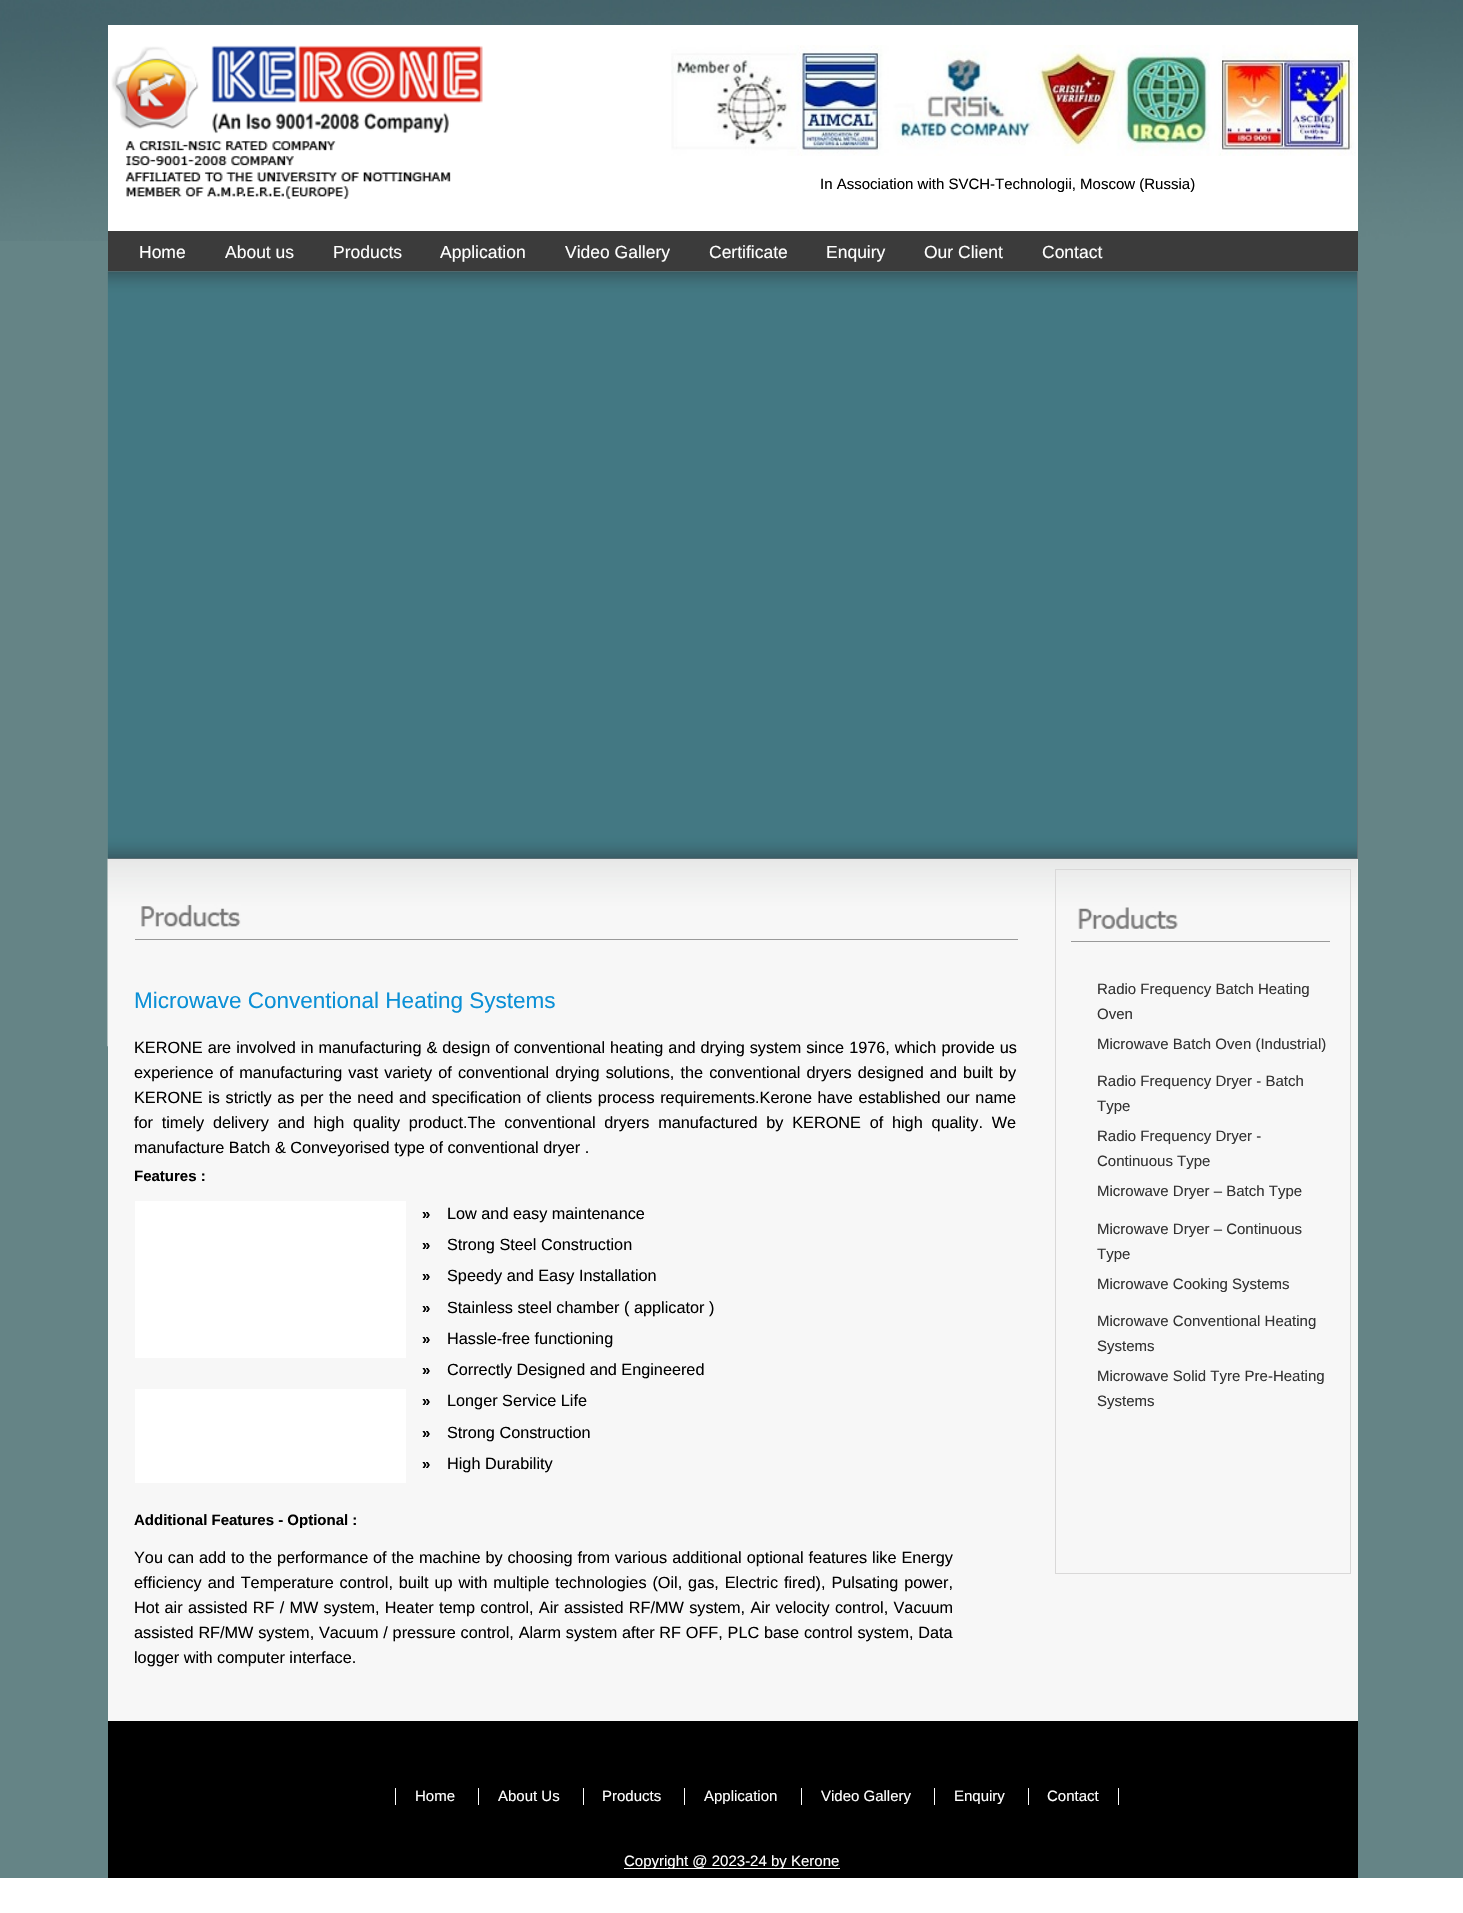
#include "include/core/SkBlurTypes.h"
#include "include/core/SkCanvas.h"
#include "include/core/SkData.h"
#include "include/core/SkFont.h"
#include "include/core/SkFontMgr.h"
#include "include/core/SkImage.h"
#include "include/core/SkMaskFilter.h"
#include "include/core/SkPaint.h"
#include "include/core/SkPathBuilder.h"
#include "include/core/SkTextBlob.h"
#include "include/effects/SkDashPathEffect.h"
#include "include/effects/SkGradientShader.h"
#include "include/utils/SkParsePath.h"

extern sk_sp<SkFontMgr> fontMgr;

void draw(SkCanvas* canvas) {
  SkPaint p;
  p.setAntiAlias(true);
  auto spacedText = [&](const char* s, float x, float y, const SkFont& font, const SkPaint& ink, float letter, float word) {
    std::vector<SkGlyphID> glyphs(font.countText(s, strlen(s), SkTextEncoding::kUTF8));
    std::vector<float> xs(glyphs.size());
    font.textToGlyphs(s, strlen(s), SkTextEncoding::kUTF8, glyphs);
    font.getXPos(glyphs, xs, x);
    float extra = 0;
    for (size_t i = 0; i < glyphs.size(); i++) {
      xs[i] += extra;
      extra += letter + word * (glyphs[i] == font.unicharToGlyph(' '));
    }
    canvas->drawTextBlob(SkTextBlob::MakeFromPosHGlyphs(glyphs, xs, y, font), 0, 0, ink);
  };
  canvas->clear(SK_ColorWHITE);
  p.setColor(SkColorSetRGB(101, 132, 134));
  canvas->drawRect(SkRect::MakeLTRB(0, 241, 1463, 1878), p);
  canvas->drawImageRect(SkImages::DeferredFromEncodedData(SkData::MakeFromFileName("images/1.png")), SkRect::MakeLTRB(0, 0, 1463, 241), SkSamplingOptions());
  p.setColor(SK_ColorWHITE);
  canvas->drawRect(SkRect::MakeLTRB(108, 25, 1358, 231), p);
  canvas->drawImageRect(SkImages::DeferredFromEncodedData(SkData::MakeFromFileName("images/2.png")), SkRect::MakeLTRB(111, 45, 483, 199), SkSamplingOptions());
  canvas->drawImageRect(SkImages::DeferredFromEncodedData(SkData::MakeFromFileName("images/3.png")), SkRect::MakeLTRB(671, 45, 1356, 156), SkSamplingOptions());
  p.setColor(SkColorSetRGB(59, 59, 59));
  canvas->drawRect(SkRect::MakeLTRB(108, 231, 1358, 271), p);
  p.setColor(SkColorSetRGB(247, 247, 247));
  canvas->drawRect(SkRect::MakeLTRB(108, 859, 1358, 1721), p);
  canvas->drawImageRect(SkImages::DeferredFromEncodedData(SkData::MakeFromFileName("images/5.png")), SkRect::MakeLTRB(107, 858, 1358, 1047), SkSamplingOptions());
  p.setColor(SkColorSetARGB(163, 101, 103, 110));
  canvas->drawRect(SkRect::MakeLTRB(108, 271, 1358, 859), p);
  canvas->drawImageRect(SkImages::DeferredFromEncodedData(SkData::MakeFromFileName("images/4.png")), SkRect::MakeLTRB(107, 271, 1358, 859), SkSamplingOptions());
  p.setColor(SkColorSetRGB(153, 153, 153));
  canvas->drawRect(SkRect::MakeLTRB(135, 939, 1018, 940), p);
  canvas->drawImageRect(SkImages::DeferredFromEncodedData(SkData::MakeFromFileName("images/6.png")), SkRect::MakeLTRB(141, 904, 241, 927), SkSamplingOptions());
  p.setColor(SK_ColorWHITE);
  canvas->drawRect(SkRect::MakeLTRB(135, 1201, 406, 1358), p);
  canvas->drawRect(SkRect::MakeLTRB(135, 1389, 406, 1483), p);
  p.setStyle(SkPaint::kStroke_Style);
  p.setStrokeWidth(1);
  p.setColor(SkColorSetRGB(217, 216, 216));
  canvas->drawRect(SkRect::MakeLTRB(1055.5f, 869.5f, 1350.5f, 1573.5f), p);
  p.setStyle(SkPaint::kFill_Style);
  p.setColor(SkColorSetRGB(153, 153, 153));
  canvas->drawRect(SkRect::MakeLTRB(1071, 941, 1330, 942), p);
  canvas->drawImageRect(SkImages::DeferredFromEncodedData(SkData::MakeFromFileName("images/7.png")), SkRect::MakeLTRB(1078, 907, 1178, 929), SkSamplingOptions());
  p.setColor(SK_ColorBLACK);
  canvas->drawRect(SkRect::MakeLTRB(108, 1721, 1358, 1878), p);
  p.setColor(SK_ColorWHITE);
  canvas->drawRect(SkRect::MakeLTRB(395, 1788, 396, 1805), p);
  canvas->drawRect(SkRect::MakeLTRB(478, 1788, 479, 1805), p);
  canvas->drawRect(SkRect::MakeLTRB(583, 1788, 584, 1805), p);
  canvas->drawRect(SkRect::MakeLTRB(684, 1788, 685, 1805), p);
  canvas->drawRect(SkRect::MakeLTRB(801, 1788, 802, 1805), p);
  canvas->drawRect(SkRect::MakeLTRB(934, 1788, 935, 1805), p);
  canvas->drawRect(SkRect::MakeLTRB(1028, 1788, 1029, 1805), p);
  canvas->drawRect(SkRect::MakeLTRB(1118, 1788, 1119, 1805), p);
  canvas->drawRect(SkRect::MakeLTRB(624, 1868, 840, 1869), p);
  SkFont font1(fontMgr->matchFamilyStyle("Liberation Sans", SkFontStyle::Normal()), 15);
  font1.setSubpixel(true);
  p.setColor(SK_ColorBLACK);
  canvas->drawString("In Association with SVCH-Technologii, Moscow (Russia)", 820, 189, font1, p);
  SkFont font2(fontMgr->matchFamilyStyle("Liberation Sans", SkFontStyle::Normal()), 17.5f);
  font2.setSubpixel(true);
  p.setColor(SK_ColorWHITE);
  canvas->drawString("Home", 139, 258, font2, p);
  canvas->drawString("About us", 225, 258, font2, p);
  canvas->drawString("Products", 333, 258, font2, p);
  canvas->drawString("Application", 440, 258, font2, p);
  canvas->drawString("Video Gallery", 565, 258, font2, p);
  canvas->drawString("Certificate", 709, 258, font2, p);
  canvas->drawString("Enquiry", 826, 258, font2, p);
  canvas->drawString("Our Client", 924, 258, font2, p);
  canvas->drawString("Contact", 1042, 258, font2, p);
  SkFont font3(fontMgr->matchFamilyStyle("Liberation Sans", SkFontStyle::Normal()), 22.5f);
  font3.setSubpixel(true);
  p.setColor(SkColorSetRGB(11, 144, 214));
  canvas->drawString("Microwave Conventional Heating Systems", 134, 1008, font3, p);
  SkFont font4(fontMgr->matchFamilyStyle("Liberation Sans", SkFontStyle::Normal()), 16.25f);
  font4.setSubpixel(true);
  p.setColor(SK_ColorBLACK);
  spacedText("KERONE are involved in manufacturing & design of conventional heating and drying system since 1976, which provide us", 134, 1053, font4, p, 0, 0.5f);
  spacedText("experience of manufacturing vast variety of conventional drying solutions, the conventional dryers designed and built by", 134, 1078, font4, p, 0, 1.6f);
  spacedText("KERONE is strictly as per the need and specification of clients process requirements.Kerone have established our name", 134, 1103, font4, p, 0, 1.1f);
  spacedText("for timely delivery and high quality product.The conventional dryers manufactured by KERONE of high quality. We", 134, 1128, font4, p, 0, 4.25f);
  canvas->drawString("manufacture Batch & Conveyorised type of conventional dryer .", 134, 1153, font4, p);
  SkFont font5(fontMgr->matchFamilyStyle("Liberation Sans", SkFontStyle::Bold()), 15);
  font5.setSubpixel(true);
  canvas->drawString("Features :", 134, 1181, font5, p);
  canvas->drawString("»", 422, 1219, font5, p);
  canvas->drawString("Low and easy maintenance", 447, 1219, font4, p);
  canvas->drawString("»", 422, 1250, font5, p);
  canvas->drawString("Strong Steel Construction", 447, 1250, font4, p);
  canvas->drawString("»", 422, 1281, font5, p);
  canvas->drawString("Speedy and Easy Installation", 447, 1281, font4, p);
  canvas->drawString("»", 422, 1313, font5, p);
  canvas->drawString("Stainless steel chamber ( applicator )", 447, 1313, font4, p);
  canvas->drawString("»", 422, 1344, font5, p);
  canvas->drawString("Hassle-free functioning", 447, 1344, font4, p);
  canvas->drawString("»", 422, 1375, font5, p);
  canvas->drawString("Correctly Designed and Engineered", 447, 1375, font4, p);
  canvas->drawString("»", 422, 1406, font5, p);
  canvas->drawString("Longer Service Life", 447, 1406, font4, p);
  canvas->drawString("»", 422, 1438, font5, p);
  canvas->drawString("Strong Construction", 447, 1438, font4, p);
  canvas->drawString("»", 422, 1469, font5, p);
  canvas->drawString("High Durability", 447, 1469, font4, p);
  canvas->drawString("Additional Features - Optional :", 134, 1525, font5, p);
  spacedText("You can add to the performance of the machine by choosing from various additional optional features like Energy", 134, 1563, font4, p, 0, 0.4f);
  spacedText("efficiency and Temperature control, built up with multiple technologies (Oil, gas, Electric fired), Pulsating power,", 134, 1588, font4, p, 0, 1.4f);
  spacedText("Hot air assisted RF / MW system, Heater temp control, Air assisted RF/MW system, Air velocity control, Vacuum", 134, 1613, font4, p, 0, 0.75f);
  spacedText("assisted RF/MW system, Vacuum / pressure control, Alarm system after RF OFF, PLC base control system, Data", 134, 1638, font4, p, 0, 0.25f);
  canvas->drawString("logger with computer interface.", 134, 1663, font4, p);
  p.setColor(SkColorSetRGB(51, 51, 51));
  canvas->drawString("Radio Frequency Batch Heating", 1097, 994, font1, p);
  canvas->drawString("Oven", 1097, 1019, font1, p);
  canvas->drawString("Microwave Batch Oven (Industrial)", 1097, 1049, font1, p);
  canvas->drawString("Radio Frequency Dryer - Batch", 1097, 1086, font1, p);
  canvas->drawString("Type", 1097, 1111, font1, p);
  canvas->drawString("Radio Frequency Dryer -", 1097, 1141, font1, p);
  canvas->drawString("Continuous Type", 1097, 1166, font1, p);
  canvas->drawString("Microwave Dryer – Batch Type", 1097, 1196, font1, p);
  canvas->drawString("Microwave Dryer – Continuous", 1097, 1234, font1, p);
  canvas->drawString("Type", 1097, 1259, font1, p);
  canvas->drawString("Microwave Cooking Systems", 1097, 1289, font1, p);
  canvas->drawString("Microwave Conventional Heating", 1097, 1326, font1, p);
  canvas->drawString("Systems", 1097, 1351, font1, p);
  canvas->drawString("Microwave Solid Tyre Pre-Heating", 1097, 1381, font1, p);
  canvas->drawString("Systems", 1097, 1406, font1, p);
  p.setColor(SK_ColorWHITE);
  canvas->drawString("Home", 415, 1801, font1, p);
  canvas->drawString("About Us", 498, 1801, font1, p);
  canvas->drawString("Products", 602, 1801, font1, p);
  canvas->drawString("Application", 704, 1801, font1, p);
  canvas->drawString("Video Gallery", 821, 1801, font1, p);
  canvas->drawString("Enquiry", 954, 1801, font1, p);
  canvas->drawString("Contact", 1047, 1801, font1, p);
  canvas->drawString("Copyright @ 2023-24 by Kerone", 624, 1866, font1, p);
}
